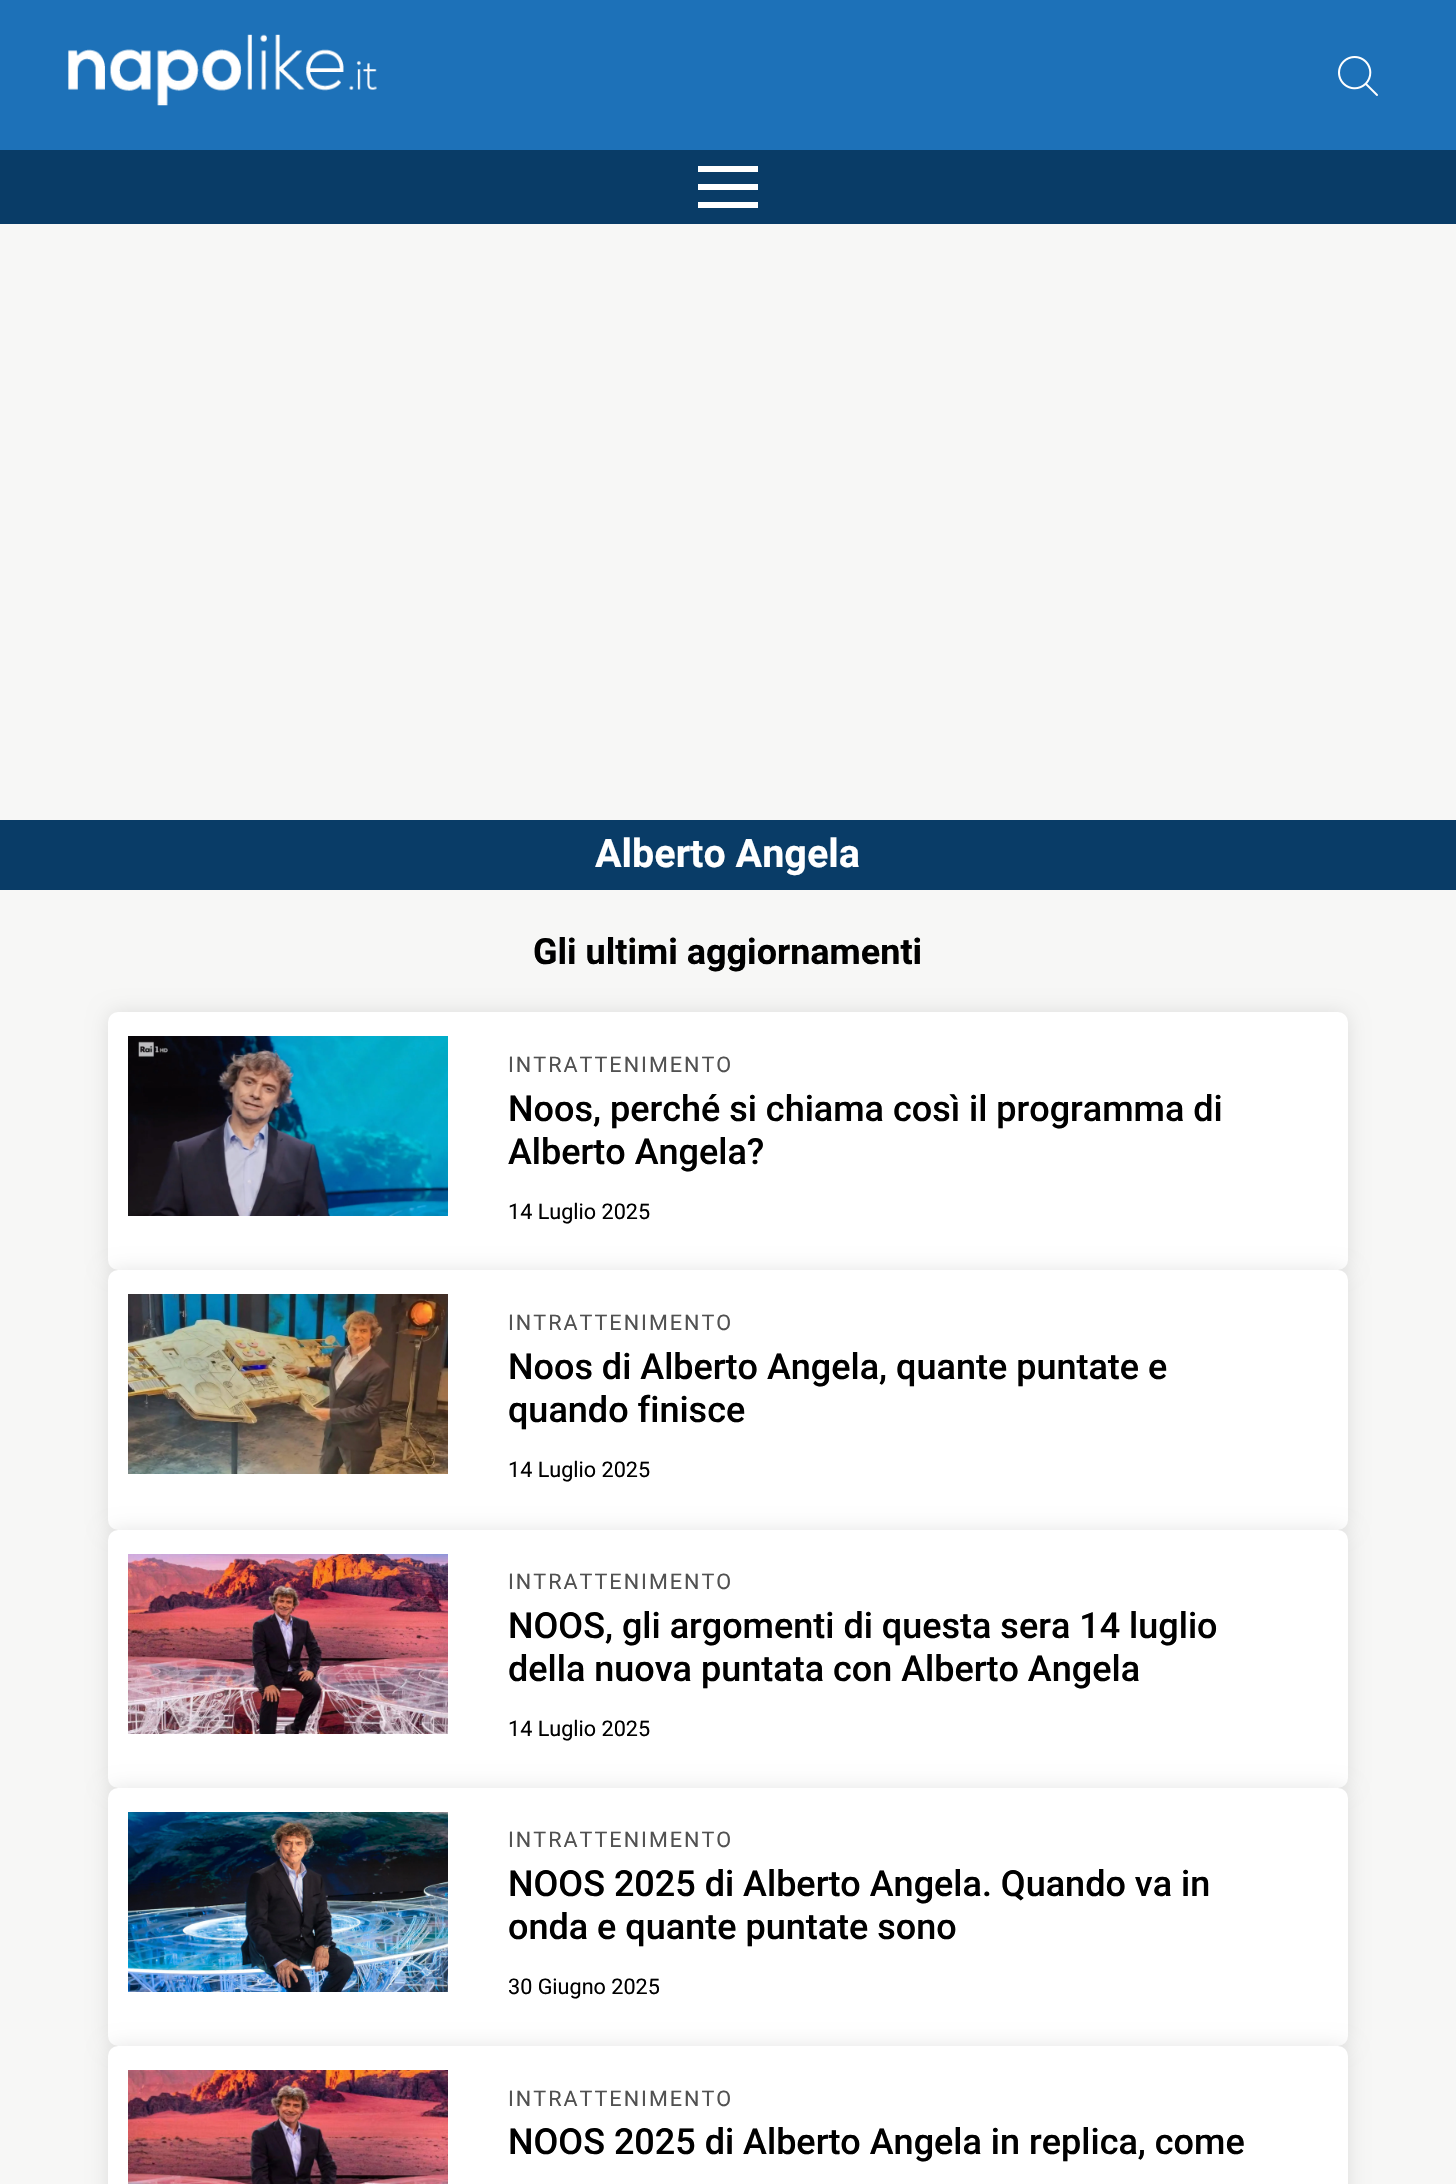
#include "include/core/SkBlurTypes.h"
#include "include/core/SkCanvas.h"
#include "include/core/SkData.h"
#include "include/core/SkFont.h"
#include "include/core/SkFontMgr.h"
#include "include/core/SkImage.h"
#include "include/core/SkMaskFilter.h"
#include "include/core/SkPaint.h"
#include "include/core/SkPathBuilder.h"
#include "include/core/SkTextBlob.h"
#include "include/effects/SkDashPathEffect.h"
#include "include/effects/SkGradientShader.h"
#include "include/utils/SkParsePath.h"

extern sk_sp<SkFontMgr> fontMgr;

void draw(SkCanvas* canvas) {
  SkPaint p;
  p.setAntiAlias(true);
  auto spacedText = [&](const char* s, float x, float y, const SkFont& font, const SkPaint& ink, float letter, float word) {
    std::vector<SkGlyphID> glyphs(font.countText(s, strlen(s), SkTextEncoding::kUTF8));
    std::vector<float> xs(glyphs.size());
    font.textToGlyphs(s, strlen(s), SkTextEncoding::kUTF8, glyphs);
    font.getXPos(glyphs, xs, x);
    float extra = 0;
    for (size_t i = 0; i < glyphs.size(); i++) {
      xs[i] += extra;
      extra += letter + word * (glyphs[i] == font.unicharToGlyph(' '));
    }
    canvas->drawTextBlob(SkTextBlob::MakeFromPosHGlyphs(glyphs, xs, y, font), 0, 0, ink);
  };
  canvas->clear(SkColorSetRGB(247, 247, 246));
  p.setColor(SkColorSetRGB(29, 113, 184));
  canvas->drawRect(SkRect::MakeLTRB(0, 0, 1456, 150), p);
  canvas->drawImageRect(SkImages::DeferredFromEncodedData(SkData::MakeFromFileName("images/1.png")), SkRect::MakeLTRB(68, 34, 377, 106), SkSamplingOptions());
  canvas->drawImageRect(SkImages::DeferredFromEncodedData(SkData::MakeFromFileName("images/2.png")), SkRect::MakeLTRB(1338, 56, 1378, 96), SkSamplingOptions());
  p.setColor(SkColorSetRGB(9, 60, 103));
  canvas->drawRect(SkRect::MakeLTRB(0, 150, 1456, 224), p);
  p.setColor(SK_ColorWHITE);
  canvas->drawRect(SkRect::MakeLTRB(698, 166, 758, 172), p);
  canvas->drawRect(SkRect::MakeLTRB(698, 184, 758, 190), p);
  canvas->drawRect(SkRect::MakeLTRB(698, 202, 758, 208), p);
  p.setColor(SkColorSetRGB(9, 60, 103));
  canvas->drawRect(SkRect::MakeLTRB(0, 820, 1456, 890), p);
  p.setColor(SkColorSetARGB(26, 0, 0, 0));
  p.setMaskFilter(SkMaskFilter::MakeBlur(kNormal_SkBlurStyle, 10));
  canvas->drawRoundRect(SkRect::MakeLTRB(108, 1012, 1348, 1270), 10, 10, p);
  p.setMaskFilter(nullptr);
  p.setColor(SK_ColorWHITE);
  canvas->drawRoundRect(SkRect::MakeLTRB(108, 1012, 1348, 1270), 10, 10, p);
  canvas->drawImageRect(SkImages::DeferredFromEncodedData(SkData::MakeFromFileName("images/3.png")), SkRect::MakeLTRB(128, 1036, 448, 1216), SkSamplingOptions());
  p.setColor(SkColorSetARGB(26, 0, 0, 0));
  p.setMaskFilter(SkMaskFilter::MakeBlur(kNormal_SkBlurStyle, 10));
  canvas->drawRoundRect(SkRect::MakeLTRB(108, 1270, 1348, 1530), 10, 10, p);
  p.setMaskFilter(nullptr);
  p.setColor(SK_ColorWHITE);
  canvas->drawRoundRect(SkRect::MakeLTRB(108, 1270, 1348, 1530), 10, 10, p);
  canvas->drawImageRect(SkImages::DeferredFromEncodedData(SkData::MakeFromFileName("images/4.png")), SkRect::MakeLTRB(128, 1294, 448, 1474), SkSamplingOptions());
  p.setColor(SkColorSetARGB(26, 0, 0, 0));
  p.setMaskFilter(SkMaskFilter::MakeBlur(kNormal_SkBlurStyle, 10));
  canvas->drawRoundRect(SkRect::MakeLTRB(108, 1530, 1348, 1788), 10, 10, p);
  p.setMaskFilter(nullptr);
  p.setColor(SK_ColorWHITE);
  canvas->drawRoundRect(SkRect::MakeLTRB(108, 1530, 1348, 1788), 10, 10, p);
  canvas->drawImageRect(SkImages::DeferredFromEncodedData(SkData::MakeFromFileName("images/5.png")), SkRect::MakeLTRB(128, 1554, 448, 1734), SkSamplingOptions());
  p.setColor(SkColorSetARGB(26, 0, 0, 0));
  p.setMaskFilter(SkMaskFilter::MakeBlur(kNormal_SkBlurStyle, 10));
  canvas->drawRoundRect(SkRect::MakeLTRB(108, 1788, 1348, 2046), 10, 10, p);
  p.setMaskFilter(nullptr);
  p.setColor(SK_ColorWHITE);
  canvas->drawRoundRect(SkRect::MakeLTRB(108, 1788, 1348, 2046), 10, 10, p);
  canvas->drawImageRect(SkImages::DeferredFromEncodedData(SkData::MakeFromFileName("images/6.png")), SkRect::MakeLTRB(128, 1812, 448, 1992), SkSamplingOptions());
  p.setColor(SkColorSetARGB(26, 0, 0, 0));
  p.setMaskFilter(SkMaskFilter::MakeBlur(kNormal_SkBlurStyle, 10));
  canvas->drawRoundRect(SkRect::MakeLTRB(108, 2046, 1348, 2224), 10, 10, p);
  p.setMaskFilter(nullptr);
  p.setColor(SK_ColorWHITE);
  canvas->drawRoundRect(SkRect::MakeLTRB(108, 2046, 1348, 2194), 10, 10, p);
  canvas->drawImageRect(SkImages::DeferredFromEncodedData(SkData::MakeFromFileName("images/7.png")), SkRect::MakeLTRB(128, 2070, 448, 2184), SkSamplingOptions());
  SkFont font1(fontMgr->matchFamilyStyle("Roboto", SkFontStyle::Bold()), 39.5f);
  font1.setSubpixel(true);
  canvas->drawString("Alberto Angela", 595, 867, font1, p);
  SkFont font2(fontMgr->matchFamilyStyle("Roboto", SkFontStyle::Bold()), 36);
  font2.setSubpixel(true);
  p.setColor(SK_ColorBLACK);
  canvas->drawString("Gli ultimi aggiornamenti", 533, 964, font2, p);
  SkFont font3(fontMgr->matchFamilyStyle("Roboto", SkFontStyle::Normal()), 21.6f);
  font3.setSubpixel(true);
  p.setColor(SkColorSetRGB(81, 81, 81));
  spacedText("INTRATTENIMENTO", 508, 1072, font3, p, 2, 0);
  SkFont font4(fontMgr->matchFamilyStyle("Roboto", SkFontStyle(500, SkFontStyle::kNormal_Width, SkFontStyle::kUpright_Slant)), 36);
  font4.setSubpixel(true);
  p.setColor(SK_ColorBLACK);
  canvas->drawString("Noos, perché si chiama così il programma di", 508, 1121, font4, p);
  canvas->drawString("Alberto Angela?", 508, 1164, font4, p);
  canvas->drawString("14 Luglio 2025", 508, 1219, font3, p);
  p.setColor(SkColorSetRGB(81, 81, 81));
  spacedText("INTRATTENIMENTO", 508, 1330, font3, p, 2, 0);
  p.setColor(SK_ColorBLACK);
  canvas->drawString("Noos di Alberto Angela, quante puntate e", 508, 1379, font4, p);
  canvas->drawString("quando finisce", 508, 1422, font4, p);
  canvas->drawString("14 Luglio 2025", 508, 1477, font3, p);
  p.setColor(SkColorSetRGB(81, 81, 81));
  spacedText("INTRATTENIMENTO", 508, 1589, font3, p, 2, 0);
  p.setColor(SK_ColorBLACK);
  canvas->drawString("NOOS, gli argomenti di questa sera 14 luglio", 508, 1638, font4, p);
  canvas->drawString("della nuova puntata con Alberto Angela", 508, 1681, font4, p);
  canvas->drawString("14 Luglio 2025", 508, 1736, font3, p);
  p.setColor(SkColorSetRGB(81, 81, 81));
  spacedText("INTRATTENIMENTO", 508, 1847, font3, p, 2, 0);
  p.setColor(SK_ColorBLACK);
  canvas->drawString("NOOS 2025 di Alberto Angela. Quando va in", 508, 1896, font4, p);
  canvas->drawString("onda e quante puntate sono", 508, 1939, font4, p);
  canvas->drawString("30 Giugno 2025", 508, 1994, font3, p);
  p.setColor(SkColorSetRGB(81, 81, 81));
  spacedText("INTRATTENIMENTO", 508, 2106, font3, p, 2, 0);
  p.setColor(SK_ColorBLACK);
  canvas->drawString("NOOS 2025 di Alberto Angela in replica, come", 508, 2154, font4, p);
}
